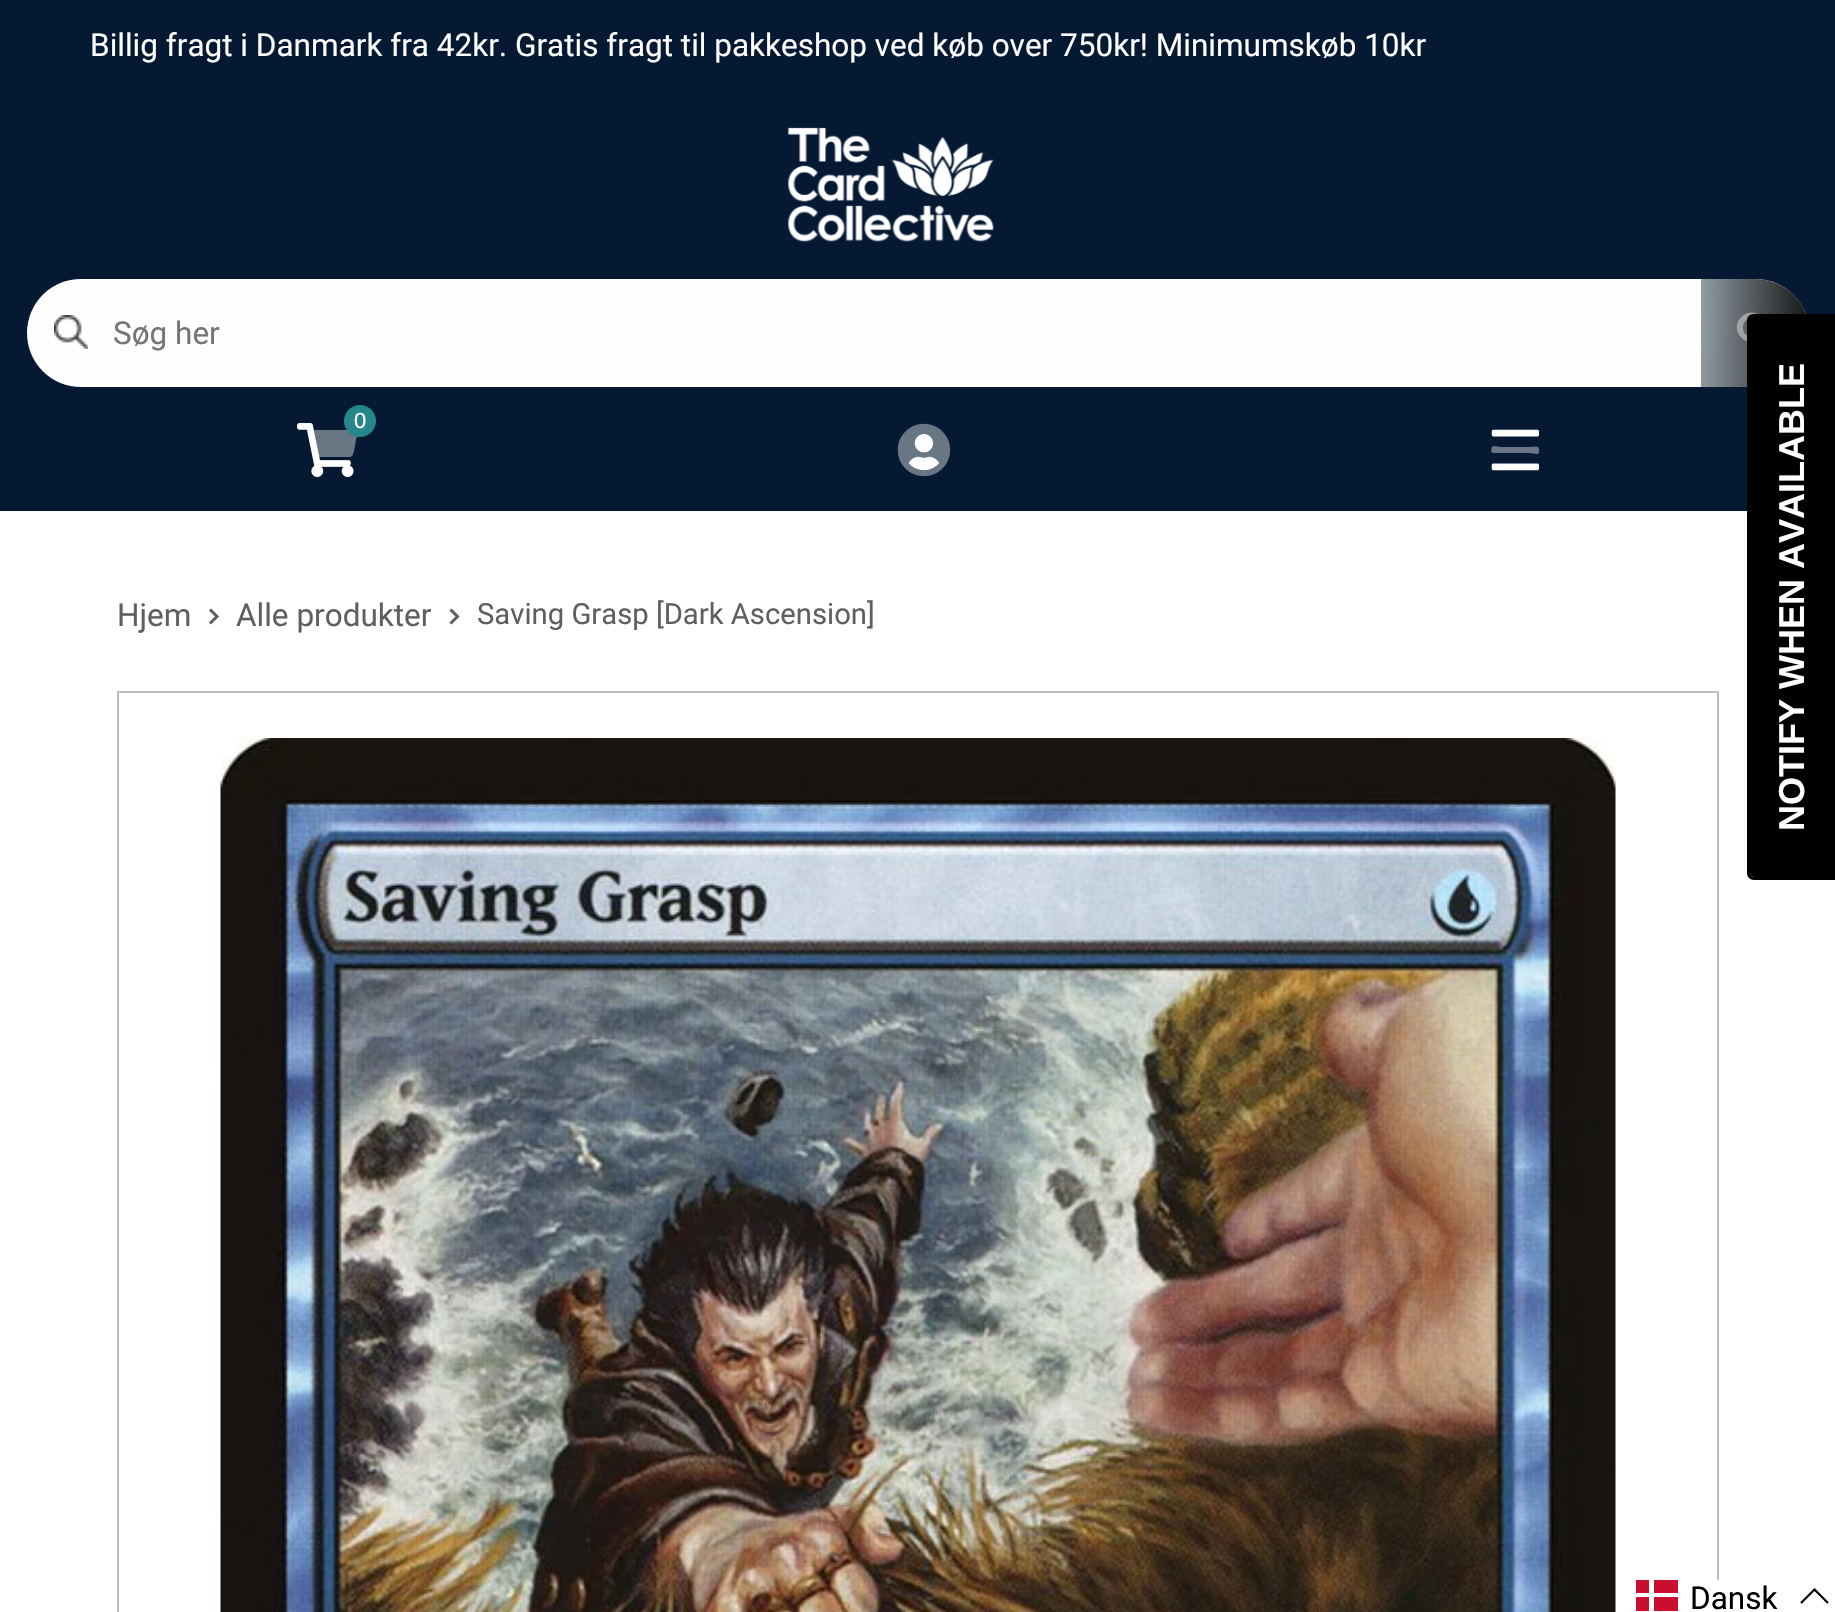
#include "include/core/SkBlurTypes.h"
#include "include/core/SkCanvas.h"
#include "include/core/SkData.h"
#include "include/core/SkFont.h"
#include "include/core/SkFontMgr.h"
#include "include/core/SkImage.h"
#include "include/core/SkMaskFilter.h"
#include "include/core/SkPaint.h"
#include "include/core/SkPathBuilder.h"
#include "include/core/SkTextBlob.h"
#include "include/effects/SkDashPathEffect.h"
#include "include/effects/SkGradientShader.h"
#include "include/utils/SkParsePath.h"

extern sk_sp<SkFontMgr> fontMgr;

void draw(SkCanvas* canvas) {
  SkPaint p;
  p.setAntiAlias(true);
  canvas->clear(SK_ColorWHITE);
  p.setColor(SkColorSetRGB(5, 26, 50));
  canvas->drawRect(SkRect::MakeLTRB(0, 0, 1835, 511), p);
  canvas->drawImageRect(SkImages::DeferredFromEncodedData(SkData::MakeFromFileName("images/1.png")), SkRect::MakeLTRB(787, 127, 994, 242), SkSamplingOptions());
  p.setColor(SkColorSetRGB(254, 254, 254));
  canvas->drawRoundRect(SkRect::MakeLTRB(27, 279, 1809, 387), 54, 54, p);
  canvas->drawImageRect(SkImages::DeferredFromEncodedData(SkData::MakeFromFileName("images/2.png")), SkRect::MakeLTRB(54, 315, 88, 349), SkSamplingOptions());
  {
    const SkColor colors[] = {SkColorSetRGB(19, 19, 19), SkColorSetRGB(145, 156, 163)};
    const float stops[] = {0, 1};
    const SkPoint ends[] = {{1810, 334}, {1700, 332}};
    p.setShader(SkGradientShader::MakeLinear(ends, colors, stops, 2, SkTileMode::kClamp));
    p.setAlpha(255);
  }
  canvas->drawPath(SkPathBuilder().moveTo(1701, 279).lineTo(1755, 279).cubicTo(1785, 279, 1809, 303, 1809, 333).cubicTo(1809, 363, 1785, 387, 1755, 387).lineTo(1701, 387).close().detach(), p);
  p.setShader(nullptr);
  p.setColor(SkColorSetARGB(102, 255, 255, 255));
  canvas->drawPath(SkPathBuilder().moveTo(1751.5f, 318.5f).cubicTo(1740, 318.5f, 1740, 336.5f, 1751.5f, 336.5f).cubicTo(1763.5f, 336.5f, 1763.5f, 318.5f, 1751.5f, 318.5f).close().moveTo(1741.5f, 317).cubicTo(1755, 303.5f, 1775.5f, 324, 1762, 337.5f).cubicTo(1748.5f, 351.5f, 1727.5f, 330.5f, 1741.5f, 317).close().detach(), p);
  canvas->drawImageRect(SkImages::DeferredFromEncodedData(SkData::MakeFromFileName("images/3.png")), SkRect::MakeLTRB(297, 423, 354, 477), SkSamplingOptions());
  p.setColor(SkColorSetARGB(102, 254, 254, 254));
  canvas->drawPath(SkPathBuilder().moveTo(355, 430).cubicTo(360, 430, 356, 439, 356, 440).lineTo(354, 451).cubicTo(352, 458, 352, 457, 345, 457).lineTo(319, 457).lineTo(314, 430).close().detach(), p);
  p.setColor(SkColorSetRGB(37, 135, 140));
  canvas->drawCircle(360, 421, 16, p);
  canvas->drawImageRect(SkImages::DeferredFromEncodedData(SkData::MakeFromFileName("images/5.png")), SkRect::MakeLTRB(908, 434, 940, 471), SkSamplingOptions());
  canvas->drawImageRect(SkImages::DeferredFromEncodedData(SkData::MakeFromFileName("images/4.png")), SkRect::MakeLTRB(897, 423, 950, 477), SkSamplingOptions());
  canvas->drawImageRect(SkImages::DeferredFromEncodedData(SkData::MakeFromFileName("images/6.png")), SkRect::MakeLTRB(1491, 429, 1539, 471), SkSamplingOptions());
  p.setColor(SkColorSetRGB(105, 117, 132));
  canvas->drawPath(SkPathBuilder().moveTo(1493, 453).cubicTo(1491, 453, 1491, 449, 1492, 447).cubicTo(1494, 445, 1498, 447, 1501, 447).lineTo(1530, 447).cubicTo(1536, 447, 1539, 445, 1539, 450).lineTo(1539, 453).cubicTo(1538, 455, 1530, 453, 1530, 453).close().detach(), p);
  p.setStyle(SkPaint::kStroke_Style);
  p.setStrokeWidth(3);
  p.setStrokeCap(SkPaint::kSquare_Cap);
  p.setColor(SkColorSetRGB(95, 95, 95));
  canvas->drawPath(SkPathBuilder().moveTo(211, 610.5f).lineTo(217, 616.5f).lineTo(211, 622.5f).detach(), p);
  canvas->drawPath(SkPathBuilder().moveTo(451.5f, 610.5f).lineTo(457.5f, 616.5f).lineTo(451.5f, 622.5f).detach(), p);
  p.setStrokeWidth(2);
  p.setStrokeCap(SkPaint::kButt_Cap);
  p.setColor(SkColorSetRGB(189, 189, 189));
  canvas->drawRect(SkRect::MakeLTRB(118, 692, 1718, 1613), p);
  canvas->drawImageRect(SkImages::DeferredFromEncodedData(SkData::MakeFromFileName("images/7.png")), SkRect::MakeLTRB(220, 738, 1616, 1612), SkSamplingOptions());
  p.setStyle(SkPaint::kFill_Style);
  p.setColor(SK_ColorBLACK);
  canvas->drawPath(SkPathBuilder().moveTo(1750, 873).lineTo(1750, 320).cubicTo(1750, 318, 1752, 316, 1754, 316).lineTo(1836, 316).lineTo(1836, 877).lineTo(1754, 877).cubicTo(1752, 877, 1750, 875, 1750, 873).close().detach(), p);
  canvas->drawPath(SkPathBuilder(SkPathFillType::kEvenOdd).moveTo(1747, 873).lineTo(1747, 320).cubicTo(1747, 317, 1750, 314, 1754, 314).lineTo(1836, 314).lineTo(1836, 880).lineTo(1754, 880).cubicTo(1750, 880, 1747, 877, 1747, 873).close().moveTo(1750, 873).lineTo(1750, 320).cubicTo(1750, 318, 1752, 316, 1754, 316).lineTo(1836, 316).lineTo(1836, 877).lineTo(1754, 877).cubicTo(1752, 877, 1750, 875, 1750, 873).close().detach(), p);
  p.setColor(SK_ColorWHITE);
  canvas->drawRect(SkRect::MakeLTRB(1717, 1580, 1719, 1612), p);
  p.setColor(SkColorSetRGB(200, 16, 46));
  canvas->drawRect(SkRect::MakeLTRB(1636, 1580, 1678, 1611), p);
  p.setColor(SK_ColorWHITE);
  canvas->drawRect(SkRect::MakeLTRB(1649, 1580, 1654, 1611), p);
  canvas->drawRect(SkRect::MakeLTRB(1636, 1593, 1678, 1597), p);
  p.setStyle(SkPaint::kStroke_Style);
  p.setStrokeWidth(2.2f);
  p.setColor(SK_ColorBLACK);
  canvas->drawPath(SkPathBuilder().moveTo(1828, 1603).lineTo(1814.5f, 1589.5f).lineTo(1801, 1603).detach(), p);
  SkFont font1(fontMgr->matchFamilyStyle("Roboto", SkFontStyle::Normal()), 31.5f);
  font1.setSubpixel(true);
  p.setStyle(SkPaint::kFill_Style);
  p.setColor(SK_ColorWHITE);
  canvas->drawString("Billig fragt i Danmark fra 42kr. Gratis fragt til pakkeshop ved køb over 750kr! Minimumskøb 10kr", 90, 56, font1, p);
  p.setColor(SkColorSetRGB(117, 117, 117));
  canvas->drawString("Søg her", 113, 344, font1, p);
  SkFont font2(fontMgr->matchFamilyStyle("Liberation Sans", SkFontStyle::Normal()), 22);
  font2.setSubpixel(true);
  p.setColor(SK_ColorWHITE);
  canvas->drawString("0", 354, 428, font2, p);
  p.setColor(SkColorSetRGB(95, 95, 95));
  canvas->drawString("Hjem", 117, 626, font1, p);
  canvas->drawString("Alle produkter", 236, 626, font1, p);
  SkFont font3(fontMgr->matchFamilyStyle("Roboto", SkFontStyle::Normal()), 29.25f);
  font3.setSubpixel(true);
  canvas->drawString("Saving Grasp [Dark Ascension]", 477, 624, font3, p);
  SkFont font4(fontMgr->matchFamilyStyle("Liberation Sans", SkFontStyle::Bold()), 36);
  font4.setSubpixel(true);
  p.setColor(SK_ColorWHITE);
  canvas->save();
  canvas->rotate(-90, 1804, 831);
  canvas->drawString("NOTIFY WHEN AVAILABLE", 1804, 831, font4, p);
  canvas->restore();
  p.setColor(SK_ColorBLACK);
  canvas->drawString("Dansk", 1690, 1609, font1, p);
}
